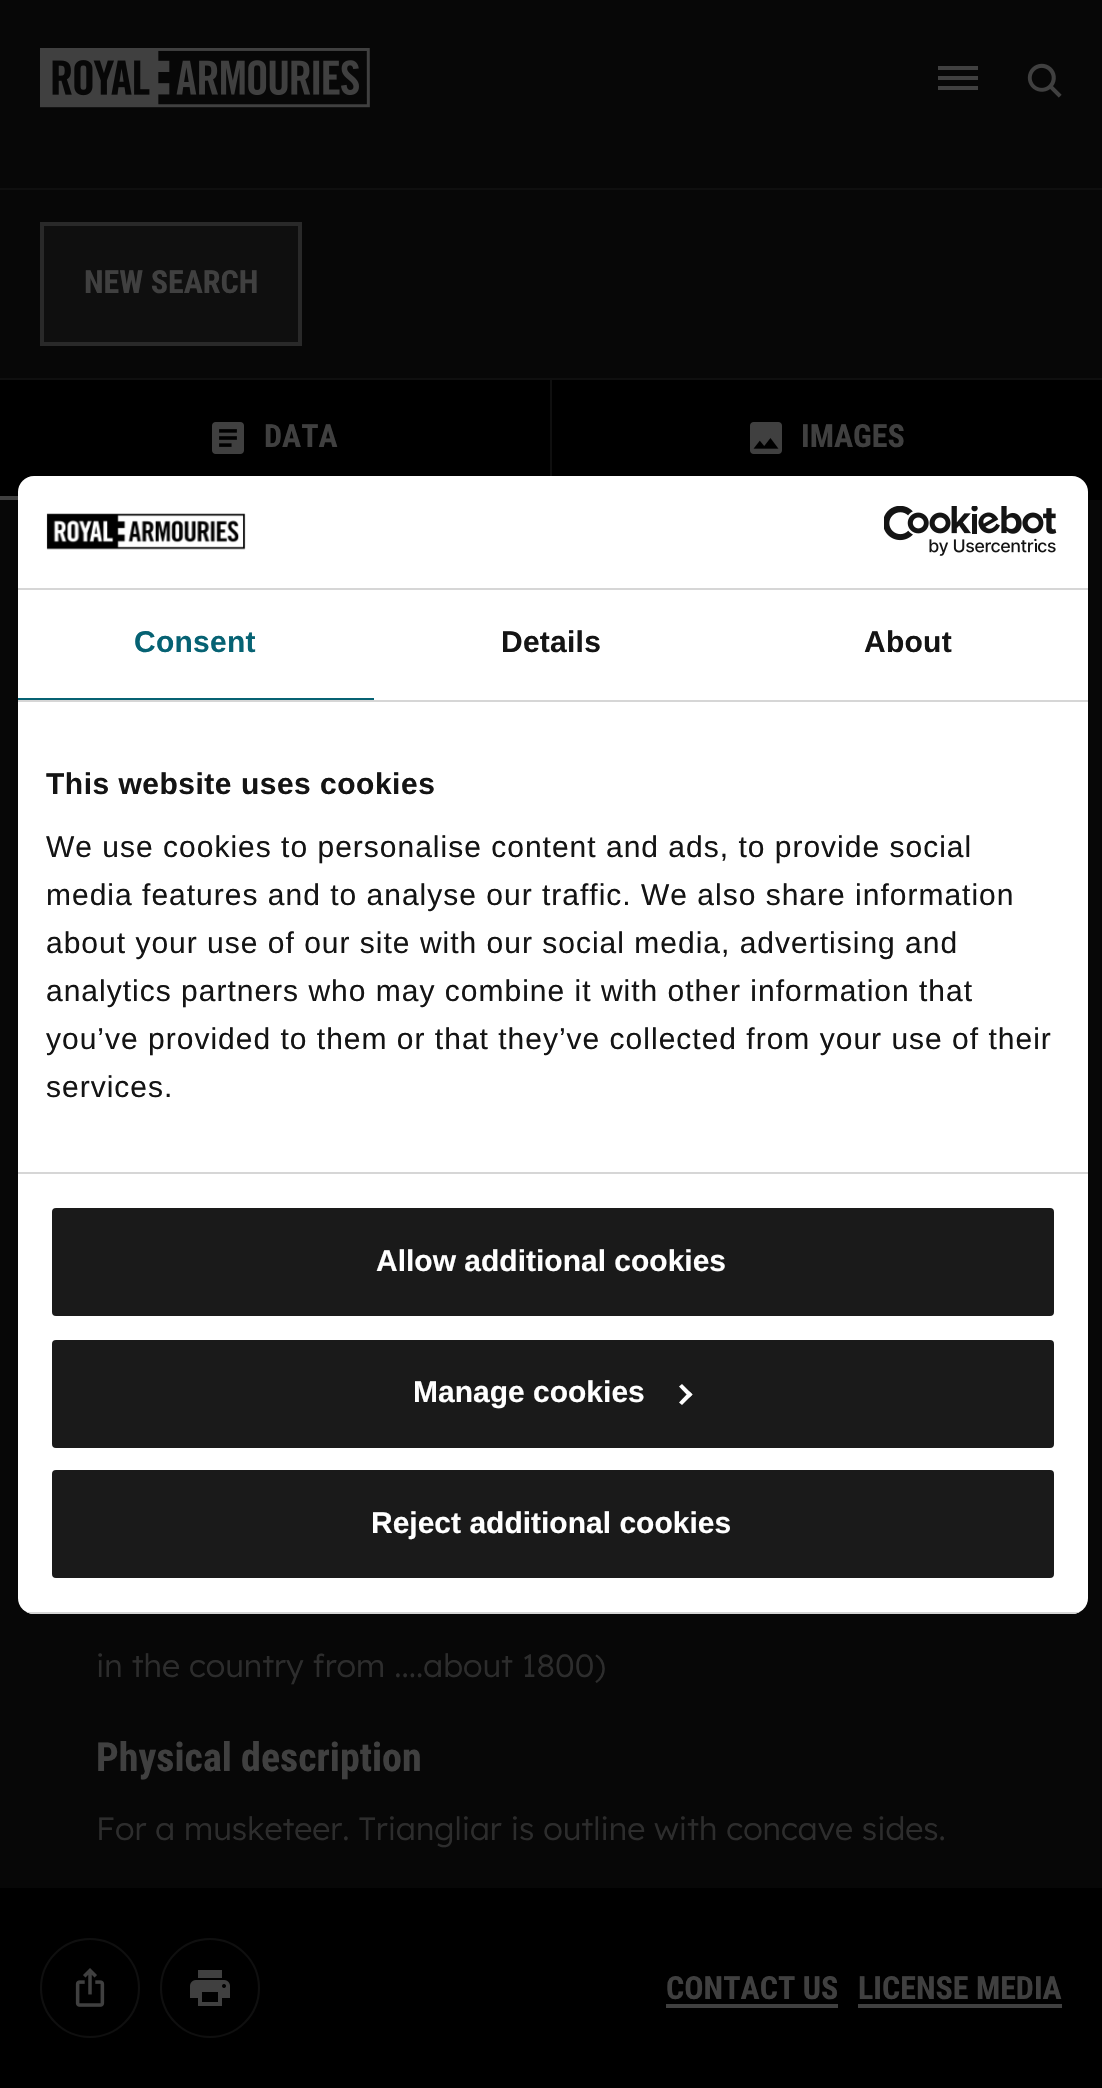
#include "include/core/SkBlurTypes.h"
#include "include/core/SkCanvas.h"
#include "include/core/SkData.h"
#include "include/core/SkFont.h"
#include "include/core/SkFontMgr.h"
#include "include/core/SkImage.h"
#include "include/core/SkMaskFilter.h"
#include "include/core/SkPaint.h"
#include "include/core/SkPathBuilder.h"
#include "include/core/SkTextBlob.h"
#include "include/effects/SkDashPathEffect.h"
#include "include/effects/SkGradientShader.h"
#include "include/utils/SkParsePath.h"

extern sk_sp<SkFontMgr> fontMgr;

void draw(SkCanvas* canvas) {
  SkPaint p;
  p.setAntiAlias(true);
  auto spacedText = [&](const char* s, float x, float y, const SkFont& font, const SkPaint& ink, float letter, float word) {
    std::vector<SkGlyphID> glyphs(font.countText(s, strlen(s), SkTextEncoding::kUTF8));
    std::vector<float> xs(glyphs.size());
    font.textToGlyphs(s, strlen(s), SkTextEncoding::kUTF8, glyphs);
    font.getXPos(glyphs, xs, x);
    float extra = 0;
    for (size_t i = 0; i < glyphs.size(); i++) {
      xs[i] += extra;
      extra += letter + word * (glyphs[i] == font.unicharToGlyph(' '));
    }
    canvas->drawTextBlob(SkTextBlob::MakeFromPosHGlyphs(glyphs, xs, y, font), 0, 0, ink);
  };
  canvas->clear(SkColorSetRGB(7, 7, 7));
  canvas->drawImageRect(SkImages::DeferredFromEncodedData(SkData::MakeFromFileName("images/1.png")), SkRect::MakeLTRB(40, 48, 370, 108), SkSamplingOptions());
  p.setColor(SkColorSetRGB(64, 64, 64));
  canvas->drawRect(SkRect::MakeLTRB(938, 76, 978, 80), p);
  canvas->drawRect(SkRect::MakeLTRB(938, 66, 978, 70), p);
  canvas->drawRect(SkRect::MakeLTRB(938, 86, 978, 90), p);
  canvas->drawImageRect(SkImages::DeferredFromEncodedData(SkData::MakeFromFileName("images/2.png")), SkRect::MakeLTRB(1027, 63, 1062, 98), SkSamplingOptions());
  p.setColor(SkColorSetRGB(15, 15, 15));
  canvas->drawRect(SkRect::MakeLTRB(0, 188, 1102, 190), p);
  canvas->drawRect(SkRect::MakeLTRB(0, 378, 1102, 380), p);
  canvas->drawRect(SkRect::MakeLTRB(42, 224, 300, 344), p);
  p.setStyle(SkPaint::kStroke_Style);
  p.setStrokeWidth(4);
  p.setColor(SkColorSetRGB(41, 41, 41));
  canvas->drawRect(SkRect::MakeLTRB(42, 224, 300, 344), p);
  p.setStyle(SkPaint::kFill_Style);
  p.setColor(SkColorSetRGB(15, 15, 15));
  canvas->drawRect(SkRect::MakeLTRB(550, 380, 552, 476), p);
  p.setColor(SK_ColorBLACK);
  canvas->drawRect(SkRect::MakeLTRB(0, 380, 550, 496), p);
  p.setColor(SkColorSetRGB(64, 64, 64));
  canvas->drawRect(SkRect::MakeLTRB(0, 496, 18, 500), p);
  canvas->drawImageRect(SkImages::DeferredFromEncodedData(SkData::MakeFromFileName("images/3.png")), SkRect::MakeLTRB(212, 422, 244, 454), SkSamplingOptions());
  p.setColor(SK_ColorBLACK);
  canvas->drawRect(SkRect::MakeLTRB(552, 380, 1102, 500), p);
  canvas->drawImageRect(SkImages::DeferredFromEncodedData(SkData::MakeFromFileName("images/4.png")), SkRect::MakeLTRB(750, 422, 782, 454), SkSamplingOptions());
  canvas->drawRect(SkRect::MakeLTRB(0, 1888, 1102, 2088), p);
  p.setStyle(SkPaint::kStroke_Style);
  p.setStrokeWidth(2);
  p.setColor(SkColorSetRGB(15, 15, 15));
  canvas->drawCircle(90, 1988, 49, p);
  canvas->drawImageRect(SkImages::DeferredFromEncodedData(SkData::MakeFromFileName("images/5.png")), SkRect::MakeLTRB(75, 1968, 105, 2007), SkSamplingOptions());
  canvas->drawCircle(210, 1988, 49, p);
  canvas->drawImageRect(SkImages::DeferredFromEncodedData(SkData::MakeFromFileName("images/6.png")), SkRect::MakeLTRB(190, 1970, 230, 2006), SkSamplingOptions());
  p.setStyle(SkPaint::kFill_Style);
  p.setColor(SkColorSetRGB(64, 64, 64));
  canvas->drawRect(SkRect::MakeLTRB(666, 2004, 838, 2008), p);
  canvas->drawRect(SkRect::MakeLTRB(858, 2004, 1062, 2008), p);
  p.setColor(SK_ColorWHITE);
  canvas->drawRoundRect(SkRect::MakeLTRB(18, 476, 1088, 1614), 16, 16, p);
  p.setColor(SkColorSetRGB(214, 214, 214));
  canvas->drawRect(SkRect::MakeLTRB(18, 588, 1088, 590), p);
  canvas->drawImageRect(SkImages::DeferredFromEncodedData(SkData::MakeFromFileName("images/7.png")), SkRect::MakeLTRB(46, 513, 246, 550), SkSamplingOptions());
  canvas->drawImageRect(SkImages::DeferredFromEncodedData(SkData::MakeFromFileName("images/8.png")), SkRect::MakeLTRB(884, 506, 1057, 556), SkSamplingOptions());
  canvas->drawRect(SkRect::MakeLTRB(18, 700, 1088, 702), p);
  p.setColor(SkColorSetRGB(6, 98, 115));
  canvas->drawRect(SkRect::MakeLTRB(18, 698, 374, 700), p);
  p.setColor(SkColorSetRGB(214, 214, 214));
  canvas->drawRect(SkRect::MakeLTRB(18, 1172, 1088, 1174), p);
  canvas->save();
  canvas->clipPath(SkPathBuilder().moveTo(34, 476).lineTo(1072, 476).cubicTo(1081, 476, 1088, 483, 1088, 492).lineTo(1088, 1598).cubicTo(1088, 1607, 1081, 1614, 1072, 1614).lineTo(34, 1614).cubicTo(25, 1614, 18, 1607, 18, 1598).lineTo(18, 492).cubicTo(18, 483, 25, 476, 34, 476).close().detach(), true);
  canvas->drawRect(SkRect::MakeLTRB(18, 1612, 1088, 1614), p);
  canvas->restore();
  p.setColor(SkColorSetRGB(26, 26, 26));
  canvas->drawRoundRect(SkRect::MakeLTRB(50, 1206, 1056, 1318), 6, 6, p);
  p.setStyle(SkPaint::kStroke_Style);
  p.setStrokeWidth(4);
  p.setColor(SK_ColorWHITE);
  canvas->drawRoundRect(SkRect::MakeLTRB(50, 1206, 1056, 1318), 6, 6, p);
  p.setStyle(SkPaint::kFill_Style);
  p.setColor(SkColorSetRGB(26, 26, 26));
  canvas->drawRoundRect(SkRect::MakeLTRB(50, 1338, 1056, 1450), 6, 6, p);
  p.setStyle(SkPaint::kStroke_Style);
  p.setColor(SK_ColorWHITE);
  canvas->drawRoundRect(SkRect::MakeLTRB(50, 1338, 1056, 1450), 6, 6, p);
  p.setStyle(SkPaint::kFill_Style);
  canvas->drawPath(SkPathBuilder().moveTo(682, 1384).lineTo(692.5f, 1394.5f).lineTo(689.5f, 1397.5f).lineTo(679, 1386.5f).close().detach(), p);
  canvas->drawPath(SkPathBuilder().moveTo(689.5f, 1391.5f).lineTo(692.5f, 1394.5f).lineTo(682, 1405).lineTo(679, 1402.5f).close().detach(), p);
  p.setColor(SkColorSetRGB(26, 26, 26));
  canvas->drawRoundRect(SkRect::MakeLTRB(50, 1468, 1056, 1580), 6, 6, p);
  p.setStyle(SkPaint::kStroke_Style);
  p.setColor(SK_ColorWHITE);
  canvas->drawRoundRect(SkRect::MakeLTRB(50, 1468, 1056, 1580), 6, 6, p);
  SkFont font1(fontMgr->matchFamilyStyle("Roboto Condensed", SkFontStyle::Bold()), 32);
  font1.setSubpixel(true);
  p.setStyle(SkPaint::kFill_Style);
  p.setColor(SkColorSetRGB(64, 64, 64));
  canvas->drawString("NEW SEARCH", 84, 293, font1, p);
  canvas->drawString("DATA", 264, 447, font1, p);
  canvas->drawString("IMAGES", 801, 447, font1, p);
  SkFont font2(fontMgr->matchFamilyStyle("Lexend", SkFontStyle(300, SkFontStyle::kNormal_Width, SkFontStyle::kUpright_Slant)), 32);
  font2.setSubpixel(true);
  p.setColor(SkColorSetRGB(45, 45, 45));
  canvas->drawString("in the country from ....about 1800)", 96, 1677, font2, p);
  SkFont font3(fontMgr->matchFamilyStyle("Roboto Condensed", SkFontStyle::Bold()), 40);
  font3.setSubpixel(true);
  p.setColor(SkColorSetRGB(64, 64, 64));
  canvas->drawString("Physical description", 96, 1771, font3, p);
  p.setColor(SkColorSetRGB(45, 45, 45));
  canvas->drawString("For a musketeer. Triangliar is outline with concave sides.", 96, 1840, font2, p);
  p.setColor(SkColorSetRGB(64, 64, 64));
  canvas->drawString("CONTACT US", 666, 1999, font1, p);
  canvas->drawString("LICENSE MEDIA", 858, 1999, font1, p);
  SkFont font4(fontMgr->matchFamilyStyle("Liberation Sans", SkFontStyle::Bold()), 30);
  font4.setSubpixel(true);
  p.setColor(SkColorSetRGB(6, 98, 115));
  spacedText("Consent", 134, 652, font4, p, 0.25f, 0);
  p.setColor(SkColorSetRGB(20, 20, 20));
  spacedText("Details", 501, 652, font4, p, 0.25f, 0);
  spacedText("About", 864, 652, font4, p, 0.25f, 0);
  spacedText("This website uses cookies", 46, 794, font4, p, 0.5f, 0);
  SkFont font5(fontMgr->matchFamilyStyle("Liberation Sans", SkFontStyle::Normal()), 30);
  font5.setSubpixel(true);
  spacedText("We use cookies to personalise content and ads, to provide social", 46, 857, font5, p, 1, 0);
  spacedText("media features and to analyse our traffic. We also share information", 46, 905, font5, p, 1, 0);
  spacedText("about your use of our site with our social media, advertising and", 46, 953, font5, p, 1, 0);
  spacedText("analytics partners who may combine it with other information that", 46, 1001, font5, p, 1, 0);
  spacedText("you’ve provided to them or that they’ve collected from your use of their", 46, 1049, font5, p, 1, 0);
  spacedText("services.", 46, 1097, font5, p, 1, 0);
  p.setColor(SK_ColorWHITE);
  canvas->drawString("Allow additional cookies", 376, 1271, font4, p);
  canvas->drawString("Manage cookies", 413, 1402, font4, p);
  canvas->drawString("Reject additional cookies", 371, 1533, font4, p);
}
